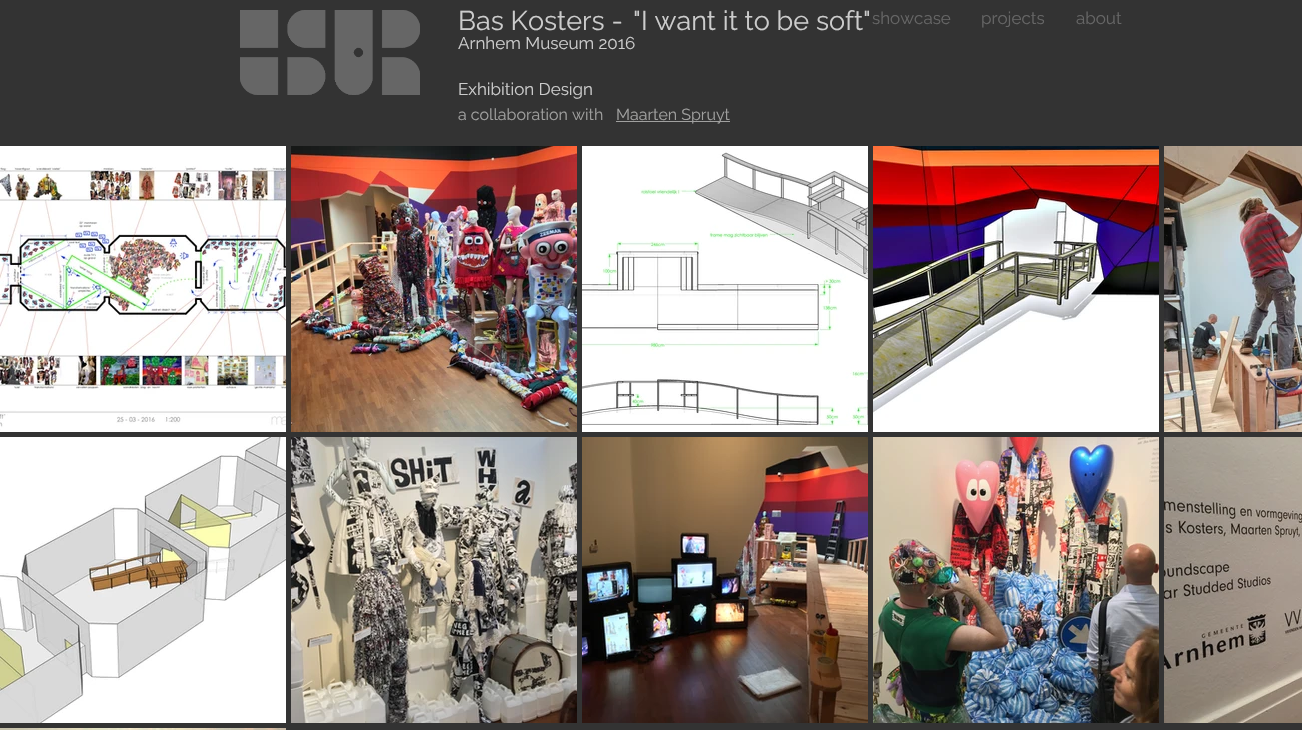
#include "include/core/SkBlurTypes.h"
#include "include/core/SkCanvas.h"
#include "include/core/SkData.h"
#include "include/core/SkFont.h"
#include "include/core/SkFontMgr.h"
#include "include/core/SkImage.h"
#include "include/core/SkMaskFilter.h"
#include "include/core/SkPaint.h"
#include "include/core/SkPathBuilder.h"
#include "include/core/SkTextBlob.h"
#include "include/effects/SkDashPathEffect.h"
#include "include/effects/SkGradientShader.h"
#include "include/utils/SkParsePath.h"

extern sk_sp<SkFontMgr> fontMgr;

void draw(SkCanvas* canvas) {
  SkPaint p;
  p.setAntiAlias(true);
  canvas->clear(SkColorSetRGB(51, 51, 51));
  p.setColor(SkColorSetRGB(160, 160, 159));
  canvas->drawRect(SkRect::MakeLTRB(616, 121, 730, 122), p);
  canvas->drawImageRect(SkImages::DeferredFromEncodedData(SkData::MakeFromFileName("images/1.png")), SkRect::MakeLTRB(0, 146, 286, 432), SkSamplingOptions());
  canvas->drawImageRect(SkImages::DeferredFromEncodedData(SkData::MakeFromFileName("images/2.png")), SkRect::MakeLTRB(291, 146, 577, 432), SkSamplingOptions());
  canvas->drawImageRect(SkImages::DeferredFromEncodedData(SkData::MakeFromFileName("images/3.png")), SkRect::MakeLTRB(582, 146, 868, 432), SkSamplingOptions());
  canvas->drawImageRect(SkImages::DeferredFromEncodedData(SkData::MakeFromFileName("images/4.png")), SkRect::MakeLTRB(873, 146, 1159, 432), SkSamplingOptions());
  canvas->drawImageRect(SkImages::DeferredFromEncodedData(SkData::MakeFromFileName("images/5.png")), SkRect::MakeLTRB(1164, 146, 1302, 432), SkSamplingOptions());
  canvas->drawImageRect(SkImages::DeferredFromEncodedData(SkData::MakeFromFileName("images/6.png")), SkRect::MakeLTRB(0, 437, 286, 723), SkSamplingOptions());
  canvas->drawImageRect(SkImages::DeferredFromEncodedData(SkData::MakeFromFileName("images/7.png")), SkRect::MakeLTRB(291, 437, 577, 723), SkSamplingOptions());
  canvas->drawImageRect(SkImages::DeferredFromEncodedData(SkData::MakeFromFileName("images/8.png")), SkRect::MakeLTRB(582, 437, 868, 723), SkSamplingOptions());
  canvas->drawImageRect(SkImages::DeferredFromEncodedData(SkData::MakeFromFileName("images/9.png")), SkRect::MakeLTRB(873, 437, 1159, 723), SkSamplingOptions());
  canvas->drawImageRect(SkImages::DeferredFromEncodedData(SkData::MakeFromFileName("images/10.png")), SkRect::MakeLTRB(1164, 437, 1302, 723), SkSamplingOptions());
  canvas->drawImageRect(SkImages::DeferredFromEncodedData(SkData::MakeFromFileName("images/11.png")), SkRect::MakeLTRB(0, 728, 286, 730), SkSamplingOptions());
  canvas->drawImageRect(SkImages::DeferredFromEncodedData(SkData::MakeFromFileName("images/12.png")), SkRect::MakeLTRB(240, 10, 420, 95), SkSamplingOptions());
  SkFont font1(fontMgr->matchFamilyStyle("Raleway", SkFontStyle::Normal()), 27);
  font1.setSubpixel(true);
  p.setColor(SkColorSetRGB(204, 204, 204));
  canvas->drawString("Bas Kosters -", 458, 30, font1, p);
  canvas->drawString("\"I want it to be soft\"", 633, 30, font1, p);
  SkFont font2(fontMgr->matchFamilyStyle("Raleway", SkFontStyle::Normal()), 17);
  font2.setSubpixel(true);
  canvas->drawString("Arnhem Museum 2016", 458, 49, font2, p);
  canvas->drawString("Exhibition Design", 458, 95, font2, p);
  SkFont font3(fontMgr->matchFamilyStyle("Raleway", SkFontStyle::Normal()), 16);
  font3.setSubpixel(true);
  p.setColor(SkColorSetRGB(160, 160, 159));
  canvas->drawString("a collaboration with", 458, 120, font3, p);
  canvas->drawString("Maarten Spruyt", 616, 120, font3, p);
  p.setColor(SkColorSetRGB(102, 102, 102));
  canvas->drawString("showcase", 872, 24, font2, p);
  canvas->drawString("projects", 981, 24, font2, p);
  canvas->drawString("about", 1076, 24, font2, p);
}
